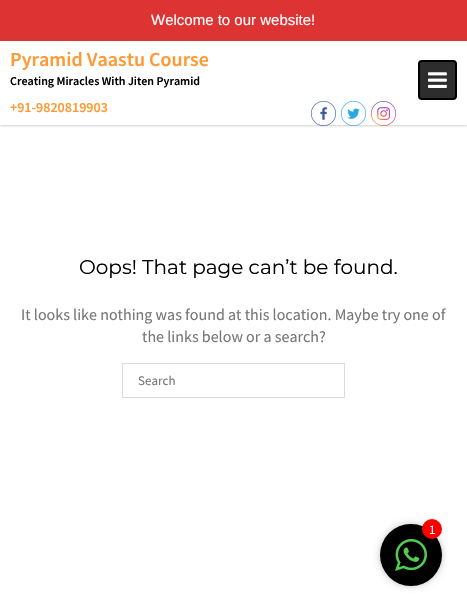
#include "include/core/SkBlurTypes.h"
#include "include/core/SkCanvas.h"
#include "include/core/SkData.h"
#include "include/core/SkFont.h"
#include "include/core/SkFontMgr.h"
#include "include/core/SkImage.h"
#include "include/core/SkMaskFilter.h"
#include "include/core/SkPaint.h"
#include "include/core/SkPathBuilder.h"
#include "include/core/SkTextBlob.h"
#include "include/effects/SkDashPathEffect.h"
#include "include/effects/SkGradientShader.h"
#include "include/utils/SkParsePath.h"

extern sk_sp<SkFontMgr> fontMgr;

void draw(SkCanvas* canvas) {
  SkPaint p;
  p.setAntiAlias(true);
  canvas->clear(SK_ColorWHITE);
  canvas->save();
  canvas->clipRect(SkRect::MakeLTRB(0, 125, 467, 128));
  p.setColor(SkColorSetRGB(170, 170, 170));
  p.setMaskFilter(SkMaskFilter::MakeBlur(kNormal_SkBlurStyle, 1.5f));
  canvas->drawRect(SkRect::MakeLTRB(0, 41, 467, 125), p);
  p.setMaskFilter(nullptr);
  canvas->restore();
  p.setColor(SkColorSetRGB(221, 51, 51));
  canvas->drawRect(SkRect::MakeLTRB(0, 0, 467, 41), p);
  p.setColor(SkColorSetRGB(45, 45, 45));
  canvas->drawRoundRect(SkRect::MakeLTRB(419, 61, 456, 99), 3, 3, p);
  p.setStyle(SkPaint::kStroke_Style);
  p.setStrokeWidth(2);
  p.setColor(SK_ColorBLACK);
  canvas->drawRoundRect(SkRect::MakeLTRB(419, 61, 456, 99), 3, 3, p);
  canvas->drawImageRect(SkImages::DeferredFromEncodedData(SkData::MakeFromFileName("images/1.png")), SkRect::MakeLTRB(428, 72, 447, 88), SkSamplingOptions());
  p.setStrokeWidth(1);
  p.setColor(SkColorSetRGB(219, 219, 219));
  canvas->drawRect(SkRect::MakeLTRB(122.5f, 363.5f, 344.5f, 397.5f), p);
  canvas->drawImageRect(SkImages::DeferredFromEncodedData(SkData::MakeFromFileName("images/2.png")), SkRect::MakeLTRB(311, 101, 336, 126), SkSamplingOptions());
  canvas->drawImageRect(SkImages::DeferredFromEncodedData(SkData::MakeFromFileName("images/3.png")), SkRect::MakeLTRB(341, 101, 366, 126), SkSamplingOptions());
  canvas->drawImageRect(SkImages::DeferredFromEncodedData(SkData::MakeFromFileName("images/4.png")), SkRect::MakeLTRB(371, 101, 396, 126), SkSamplingOptions());
  p.setStyle(SkPaint::kFill_Style);
  p.setColor(SkColorSetRGB(119, 119, 119));
  p.setMaskFilter(SkMaskFilter::MakeBlur(kNormal_SkBlurStyle, 5));
  canvas->drawRoundRect(SkRect::MakeLTRB(383, 527, 439, 583), 28, 28, p);
  p.setMaskFilter(nullptr);
  p.setColor(SK_ColorBLACK);
  canvas->drawCircle(411, 555, 31, p);
  p.setColor(SkColorSetRGB(255, 0, 0));
  canvas->drawCircle(432, 529, 10, p);
  canvas->drawImageRect(SkImages::DeferredFromEncodedData(SkData::MakeFromFileName("images/5.png")), SkRect::MakeLTRB(395, 539, 427, 571), SkSamplingOptions());
  SkFont font1(fontMgr->matchFamilyStyle("Liberation Sans", SkFontStyle::Normal()), 15);
  font1.setSubpixel(true);
  p.setColor(SK_ColorWHITE);
  canvas->drawString("Welcome to our website!", 151, 25, font1, p);
  SkFont font2(fontMgr->matchFamilyStyle("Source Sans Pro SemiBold", SkFontStyle(600, SkFontStyle::kNormal_Width, SkFontStyle::kUpright_Slant)), 20);
  font2.setSubpixel(true);
  p.setColor(SkColorSetRGB(255, 153, 51));
  canvas->drawString("Pyramid Vaastu Course", 10, 66, font2, p);
  SkFont font3(fontMgr->matchFamilyStyle("Source Sans Pro SemiBold", SkFontStyle(600, SkFontStyle::kNormal_Width, SkFontStyle::kUpright_Slant)), 12);
  font3.setSubpixel(true);
  p.setColor(SK_ColorBLACK);
  canvas->drawString("Creating Miracles With Jiten Pyramid", 10, 85, font3, p);
  SkFont font4(fontMgr->matchFamilyStyle("Source Sans Pro SemiBold", SkFontStyle(600, SkFontStyle::kNormal_Width, SkFontStyle::kUpright_Slant)), 14);
  font4.setSubpixel(true);
  p.setColor(SkColorSetRGB(255, 153, 51));
  canvas->drawString("+91-9820819903", 10, 112, font4, p);
  SkFont font5(fontMgr->matchFamilyStyle("Montserrat", SkFontStyle::Normal()), 20);
  font5.setSubpixel(true);
  p.setColor(SK_ColorBLACK);
  canvas->drawString("Oops! That page can’t be found.", 79, 274, font5, p);
  SkFont font6(fontMgr->matchFamilyStyle("Source Sans Pro", SkFontStyle::Normal()), 16);
  font6.setSubpixel(true);
  p.setColor(SkColorSetRGB(119, 119, 119));
  canvas->drawString("It looks like nothing was found at this location. Maybe try one of", 21, 320, font6, p);
  canvas->drawString("the links below or a search?", 142, 342, font6, p);
  SkFont font7(fontMgr->matchFamilyStyle("Source Sans Pro", SkFontStyle::Normal()), 13);
  font7.setSubpixel(true);
  canvas->drawString("Search", 138, 385, font7, p);
  p.setColor(SK_ColorWHITE);
  canvas->drawString("1", 429, 534, font7, p);
}
